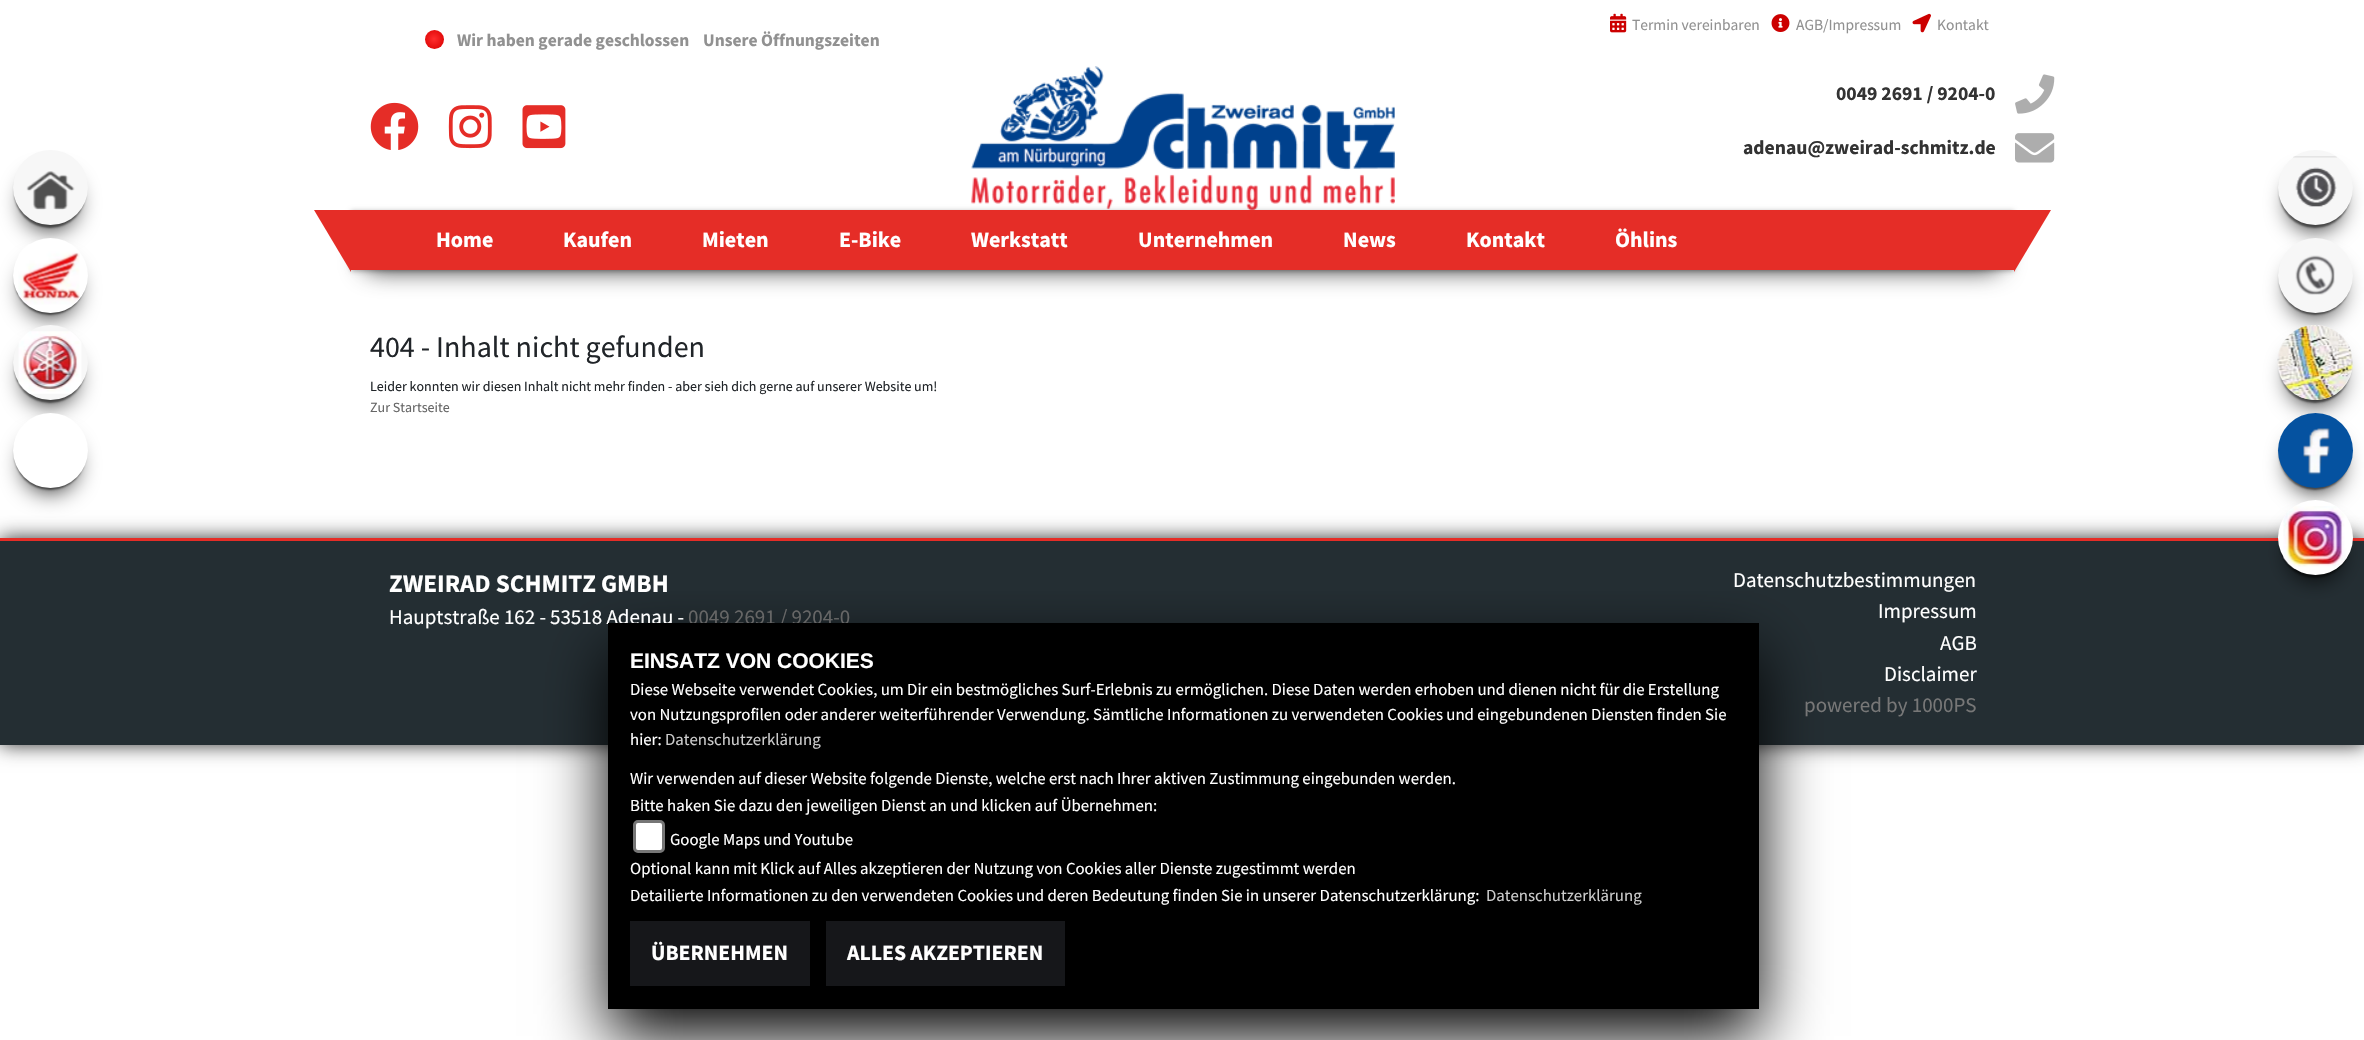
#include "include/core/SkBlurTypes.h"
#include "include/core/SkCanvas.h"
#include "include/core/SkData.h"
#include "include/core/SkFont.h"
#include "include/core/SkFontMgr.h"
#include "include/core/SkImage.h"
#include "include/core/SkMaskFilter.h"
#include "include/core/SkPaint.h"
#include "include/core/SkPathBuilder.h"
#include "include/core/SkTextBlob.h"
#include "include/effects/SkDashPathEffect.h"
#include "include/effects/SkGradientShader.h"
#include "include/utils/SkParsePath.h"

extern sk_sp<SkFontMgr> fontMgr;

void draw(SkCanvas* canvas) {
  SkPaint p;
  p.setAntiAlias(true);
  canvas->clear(SK_ColorWHITE);
  p.setColor(SK_ColorBLACK);
  p.setMaskFilter(SkMaskFilter::MakeBlur(kNormal_SkBlurStyle, 12.5f));
  canvas->drawRoundRect(SkRect::MakeLTRB(25, 178, 75, 228), 25, 25, p);
  p.setMaskFilter(nullptr);
  p.setColor(SkColorSetARGB(128, 0, 0, 0));
  p.setMaskFilter(SkMaskFilter::MakeBlur(kNormal_SkBlurStyle, 1));
  canvas->drawRoundRect(SkRect::MakeLTRB(14, 155, 86, 228), 36, 36, p);
  p.setMaskFilter(nullptr);
  p.setColor(SkColorSetRGB(247, 247, 247));
  canvas->drawCircle(50.5f, 187.5f, 37.5f, p);
  canvas->drawImageRect(SkImages::DeferredFromEncodedData(SkData::MakeFromFileName("images/1.png")), SkRect::MakeLTRB(26, 171, 75, 210), SkSamplingOptions());
  p.setColor(SK_ColorBLACK);
  p.setMaskFilter(SkMaskFilter::MakeBlur(kNormal_SkBlurStyle, 12.5f));
  canvas->drawRoundRect(SkRect::MakeLTRB(25, 265, 75, 315), 25, 25, p);
  p.setMaskFilter(nullptr);
  p.setColor(SkColorSetARGB(128, 0, 0, 0));
  p.setMaskFilter(SkMaskFilter::MakeBlur(kNormal_SkBlurStyle, 1));
  canvas->drawRoundRect(SkRect::MakeLTRB(14, 243, 86, 315), 36, 36, p);
  p.setMaskFilter(nullptr);
  p.setColor(SK_ColorWHITE);
  canvas->drawCircle(50.5f, 275.5f, 37.5f, p);
  canvas->drawImageRect(SkImages::DeferredFromEncodedData(SkData::MakeFromFileName("images/2.png")), SkRect::MakeLTRB(18, 244, 80, 307), SkSamplingOptions());
  p.setColor(SK_ColorBLACK);
  p.setMaskFilter(SkMaskFilter::MakeBlur(kNormal_SkBlurStyle, 12.5f));
  canvas->drawRoundRect(SkRect::MakeLTRB(25, 353, 75, 403), 25, 25, p);
  p.setMaskFilter(nullptr);
  p.setColor(SkColorSetARGB(128, 0, 0, 0));
  p.setMaskFilter(SkMaskFilter::MakeBlur(kNormal_SkBlurStyle, 1));
  canvas->drawRoundRect(SkRect::MakeLTRB(14, 330, 86, 403), 36, 36, p);
  p.setMaskFilter(nullptr);
  p.setColor(SkColorSetRGB(247, 247, 247));
  canvas->drawCircle(50.5f, 362.5f, 37.5f, p);
  canvas->drawImageRect(SkImages::DeferredFromEncodedData(SkData::MakeFromFileName("images/3.png")), SkRect::MakeLTRB(18, 331, 82, 394), SkSamplingOptions());
  p.setColor(SK_ColorBLACK);
  p.setMaskFilter(SkMaskFilter::MakeBlur(kNormal_SkBlurStyle, 12.5f));
  canvas->drawRoundRect(SkRect::MakeLTRB(25, 440, 75, 490), 25, 25, p);
  p.setMaskFilter(nullptr);
  p.setColor(SkColorSetARGB(128, 0, 0, 0));
  p.setMaskFilter(SkMaskFilter::MakeBlur(kNormal_SkBlurStyle, 1));
  canvas->drawRoundRect(SkRect::MakeLTRB(14, 418, 86, 490), 36, 36, p);
  p.setMaskFilter(nullptr);
  p.setColor(SK_ColorWHITE);
  canvas->drawCircle(50.5f, 450.5f, 37.5f, p);
  canvas->drawImageRect(SkImages::DeferredFromEncodedData(SkData::MakeFromFileName("images/4.png")), SkRect::MakeLTRB(1610, 13, 1627, 33), SkSamplingOptions());
  canvas->drawImageRect(SkImages::DeferredFromEncodedData(SkData::MakeFromFileName("images/5.png")), SkRect::MakeLTRB(1771, 14, 1790, 32), SkSamplingOptions());
  canvas->drawImageRect(SkImages::DeferredFromEncodedData(SkData::MakeFromFileName("images/6.png")), SkRect::MakeLTRB(1912, 13, 1931, 33), SkSamplingOptions());
  {
    const SkColor colors[] = {SkColorSetRGB(255, 45, 45), SkColorSetRGB(217, 0, 0)};
    const float stops[] = {0, 1};
    p.setShader(SkGradientShader::MakeRadial({434, 39}, 13, colors, stops, 2, SkTileMode::kClamp));
    p.setAlpha(255);
  }
  canvas->drawCircle(434.5f, 39.5f, 9.5f, p);
  canvas->drawImageRect(SkImages::DeferredFromEncodedData(SkData::MakeFromFileName("images/7.png")), SkRect::MakeLTRB(370, 102, 419, 150), SkSamplingOptions());
  canvas->drawImageRect(SkImages::DeferredFromEncodedData(SkData::MakeFromFileName("images/8.png")), SkRect::MakeLTRB(448, 105, 492, 149), SkSamplingOptions());
  canvas->drawImageRect(SkImages::DeferredFromEncodedData(SkData::MakeFromFileName("images/9.png")), SkRect::MakeLTRB(522, 105, 566, 149), SkSamplingOptions());
  canvas->drawImageRect(SkImages::DeferredFromEncodedData(SkData::MakeFromFileName("images/10.png")), SkRect::MakeLTRB(971, 66, 1395, 210), SkSamplingOptions());
  canvas->drawImageRect(SkImages::DeferredFromEncodedData(SkData::MakeFromFileName("images/11.png")), SkRect::MakeLTRB(2015, 74, 2055, 114), SkSamplingOptions());
  canvas->drawImageRect(SkImages::DeferredFromEncodedData(SkData::MakeFromFileName("images/12.png")), SkRect::MakeLTRB(2015, 133, 2055, 163), SkSamplingOptions());
  p.setShader(nullptr);
  p.setColor(SkColorSetARGB(77, 0, 0, 0));
  p.setMaskFilter(SkMaskFilter::MakeBlur(kNormal_SkBlurStyle, 2.5f));
  canvas->drawRect(SkRect::MakeLTRB(351, 211, 2014, 271), p);
  p.setMaskFilter(nullptr);
  p.setColor(SkColorSetARGB(204, 0, 0, 0));
  p.setMaskFilter(SkMaskFilter::MakeBlur(kNormal_SkBlurStyle, 12.5f));
  canvas->drawRoundRect(SkRect::MakeLTRB(364, 240, 2001, 270), 13, 13, p);
  p.setMaskFilter(nullptr);
  p.setColor(SkColorSetRGB(229, 45, 39));
  canvas->drawRect(SkRect::MakeLTRB(351, 210, 2014, 270), p);
  canvas->drawPath(SkPathBuilder().moveTo(351, 210).lineTo(351, 272).lineTo(314, 210).close().detach(), p);
  canvas->drawPath(SkPathBuilder().moveTo(2014, 210).lineTo(2051, 210).lineTo(2014, 272).close().detach(), p);
  p.setColor(SkColorSetRGB(51, 51, 51));
  p.setMaskFilter(SkMaskFilter::MakeBlur(kNormal_SkBlurStyle, 9.5f));
  canvas->drawRect(SkRect::MakeLTRB(0, 538, 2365, 745), p);
  p.setMaskFilter(nullptr);
  p.setColor(SkColorSetRGB(36, 46, 51));
  canvas->drawRect(SkRect::MakeLTRB(0, 541, 2364, 745), p);
  p.setColor(SkColorSetRGB(229, 45, 39));
  canvas->drawRect(SkRect::MakeLTRB(0, 538, 2364, 541), p);
  p.setColor(SK_ColorBLACK);
  p.setMaskFilter(SkMaskFilter::MakeBlur(kNormal_SkBlurStyle, 12.5f));
  canvas->drawRoundRect(SkRect::MakeLTRB(2290, 178, 2340, 228), 25, 25, p);
  p.setMaskFilter(nullptr);
  p.setColor(SkColorSetARGB(128, 0, 0, 0));
  p.setMaskFilter(SkMaskFilter::MakeBlur(kNormal_SkBlurStyle, 1));
  canvas->drawRoundRect(SkRect::MakeLTRB(2279, 155, 2351, 228), 36, 36, p);
  p.setMaskFilter(nullptr);
  p.setColor(SkColorSetRGB(247, 247, 247));
  canvas->drawCircle(2315.5f, 187.5f, 37.5f, p);
  canvas->drawImageRect(SkImages::DeferredFromEncodedData(SkData::MakeFromFileName("images/13.png")), SkRect::MakeLTRB(2293, 156, 2337, 207), SkSamplingOptions());
  p.setColor(SK_ColorBLACK);
  p.setMaskFilter(SkMaskFilter::MakeBlur(kNormal_SkBlurStyle, 12.5f));
  canvas->drawRoundRect(SkRect::MakeLTRB(2290, 265, 2340, 315), 25, 25, p);
  p.setMaskFilter(nullptr);
  p.setColor(SkColorSetARGB(128, 0, 0, 0));
  p.setMaskFilter(SkMaskFilter::MakeBlur(kNormal_SkBlurStyle, 1));
  canvas->drawRoundRect(SkRect::MakeLTRB(2279, 243, 2351, 315), 36, 36, p);
  p.setMaskFilter(nullptr);
  p.setColor(SkColorSetRGB(247, 247, 247));
  canvas->drawCircle(2315.5f, 275.5f, 37.5f, p);
  canvas->drawImageRect(SkImages::DeferredFromEncodedData(SkData::MakeFromFileName("images/14.png")), SkRect::MakeLTRB(2295, 255, 2335, 295), SkSamplingOptions());
  p.setColor(SK_ColorBLACK);
  p.setMaskFilter(SkMaskFilter::MakeBlur(kNormal_SkBlurStyle, 12.5f));
  canvas->drawRoundRect(SkRect::MakeLTRB(2290, 353, 2340, 403), 25, 25, p);
  p.setMaskFilter(nullptr);
  p.setColor(SkColorSetARGB(128, 0, 0, 0));
  p.setMaskFilter(SkMaskFilter::MakeBlur(kNormal_SkBlurStyle, 1));
  canvas->drawRoundRect(SkRect::MakeLTRB(2279, 330, 2351, 403), 36, 36, p);
  p.setMaskFilter(nullptr);
  p.setColor(SkColorSetRGB(247, 247, 247));
  canvas->drawCircle(2315.5f, 362.5f, 37.5f, p);
  canvas->drawImageRect(SkImages::DeferredFromEncodedData(SkData::MakeFromFileName("images/15.png")), SkRect::MakeLTRB(2277, 325, 2353, 400), SkSamplingOptions());
  p.setColor(SK_ColorBLACK);
  p.setMaskFilter(SkMaskFilter::MakeBlur(kNormal_SkBlurStyle, 12.5f));
  canvas->drawRoundRect(SkRect::MakeLTRB(2290, 440, 2340, 490), 25, 25, p);
  p.setMaskFilter(nullptr);
  p.setColor(SkColorSetARGB(128, 0, 0, 0));
  p.setMaskFilter(SkMaskFilter::MakeBlur(kNormal_SkBlurStyle, 1));
  canvas->drawRoundRect(SkRect::MakeLTRB(2279, 418, 2351, 490), 36, 36, p);
  p.setMaskFilter(nullptr);
  p.setColor(SkColorSetRGB(5, 82, 160));
  canvas->drawCircle(2315.5f, 450.5f, 37.5f, p);
  canvas->drawImageRect(SkImages::DeferredFromEncodedData(SkData::MakeFromFileName("images/16.png")), SkRect::MakeLTRB(2303, 428, 2330, 475), SkSamplingOptions());
  p.setColor(SK_ColorBLACK);
  p.setMaskFilter(SkMaskFilter::MakeBlur(kNormal_SkBlurStyle, 12.5f));
  canvas->drawRoundRect(SkRect::MakeLTRB(2290, 528, 2340, 578), 25, 25, p);
  p.setMaskFilter(nullptr);
  p.setColor(SkColorSetARGB(128, 0, 0, 0));
  p.setMaskFilter(SkMaskFilter::MakeBlur(kNormal_SkBlurStyle, 1));
  canvas->drawRoundRect(SkRect::MakeLTRB(2279, 505, 2351, 578), 36, 36, p);
  p.setMaskFilter(nullptr);
  p.setColor(SK_ColorWHITE);
  canvas->drawCircle(2315.5f, 537.5f, 37.5f, p);
  canvas->drawImageRect(SkImages::DeferredFromEncodedData(SkData::MakeFromFileName("images/17.png")), SkRect::MakeLTRB(2283, 506, 2347, 569), SkSamplingOptions());
  canvas->save();
  canvas->clipRect(SkRect::MakeLTRB(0, 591, 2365, 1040));
  p.setColor(SK_ColorBLACK);
  p.setMaskFilter(SkMaskFilter::MakeBlur(kNormal_SkBlurStyle, 31));
  canvas->drawRect(SkRect::MakeLTRB(608, 650, 1759, 1036), p);
  p.setMaskFilter(nullptr);
  canvas->restore();
  SkFont font1(fontMgr->matchFamilyStyle("Source Sans Pro", SkFontStyle::Normal()), 15.5f);
  font1.setSubpixel(true);
  p.setColor(SkColorSetRGB(145, 145, 145));
  canvas->drawString("Termin vereinbaren", 1632, 30, font1, p);
  canvas->drawString("AGB/Impressum", 1796, 30, font1, p);
  canvas->drawString("Kontakt", 1937, 30, font1, p);
  SkFont font2(fontMgr->matchFamilyStyle("Source Sans Pro", SkFontStyle::Bold()), 17.5f);
  font2.setSubpixel(true);
  canvas->drawString("Wir haben gerade geschlossen", 457, 46, font2, p);
  canvas->drawString("Unsere Öffnungszeiten", 703, 46, font2, p);
  SkFont font3(fontMgr->matchFamilyStyle("Source Sans Pro", SkFontStyle::Bold()), 19.6f);
  font3.setSubpixel(true);
  p.setColor(SkColorSetRGB(51, 51, 51));
  canvas->drawString("0049 2691 / 9204-0", 1836, 100, font3, p);
  canvas->drawString("adenau@zweirad-schmitz.de", 1743, 154, font3, p);
  SkFont font4(fontMgr->matchFamilyStyle("Source Sans Pro", SkFontStyle::Bold()), 22);
  font4.setSubpixel(true);
  p.setColor(SK_ColorWHITE);
  canvas->drawString("Home", 436, 247, font4, p);
  canvas->drawString("Kaufen", 563, 247, font4, p);
  canvas->drawString("Mieten", 702, 247, font4, p);
  canvas->drawString("E-Bike", 839, 247, font4, p);
  canvas->drawString("Werkstatt", 971, 247, font4, p);
  canvas->drawString("Unternehmen", 1138, 247, font4, p);
  canvas->drawString("News", 1343, 247, font4, p);
  canvas->drawString("Kontakt", 1466, 247, font4, p);
  canvas->drawString("Öhlins", 1615, 247, font4, p);
  SkFont font5(fontMgr->matchFamilyStyle("Source Sans Pro", SkFontStyle::Normal()), 30);
  font5.setSubpixel(true);
  p.setColor(SkColorSetRGB(33, 37, 41));
  canvas->drawString("404 - Inhalt nicht gefunden", 370, 357, font5, p);
  SkFont font6(fontMgr->matchFamilyStyle("Source Sans Pro", SkFontStyle::Normal()), 14);
  font6.setSubpixel(true);
  canvas->drawString("Leider konnten wir diesen Inhalt nicht mehr finden - aber sieh dich gerne auf unserer Website um!", 370, 391, font6, p);
  p.setColor(SkColorSetRGB(102, 102, 102));
  canvas->drawString("Zur Startseite", 370, 412, font6, p);
  SkFont font7(fontMgr->matchFamilyStyle("Source Sans Pro", SkFontStyle::Bold()), 25.25f);
  font7.setSubpixel(true);
  p.setColor(SK_ColorWHITE);
  canvas->drawString("ZWEIRAD SCHMITZ GMBH", 389, 592, font7, p);
  SkFont font8(fontMgr->matchFamilyStyle("Source Sans Pro", SkFontStyle::Normal()), 21);
  font8.setSubpixel(true);
  canvas->drawString("Hauptstraße 162 -", 389, 624, font8, p);
  canvas->drawString("53518 Adenau -", 550, 624, font8, p);
  p.setColor(SkColorSetRGB(102, 102, 102));
  canvas->drawString("0049 2691 / 9204-0", 688, 624, font8, p);
  p.setColor(SK_ColorWHITE);
  canvas->drawString("Datenschutzbestimmungen", 1733, 587, font8, p);
  canvas->drawString("Impressum", 1878, 618, font8, p);
  canvas->drawString("AGB", 1940, 650, font8, p);
  canvas->drawString("Disclaimer", 1884, 681, font8, p);
  p.setColor(SkColorSetRGB(119, 119, 119));
  canvas->drawString("powered by 1000PS", 1804, 712, font8, p);
  p.setColor(SK_ColorBLACK);
  canvas->drawRect(SkRect::MakeLTRB(608, 623, 1759, 1009), p);
  SkFont font9(fontMgr->matchFamilyStyle("Liberation Sans", SkFontStyle::Bold()), 21);
  font9.setSubpixel(true);
  p.setColor(SK_ColorWHITE);
  canvas->drawString("EINSATZ VON COOKIES", 630, 668, font9, p);
  SkFont font10(fontMgr->matchFamilyStyle("Source Sans Pro", SkFontStyle::Normal()), 16.8f);
  font10.setSubpixel(true);
  canvas->drawString("Diese Webseite verwendet Cookies, um Dir ein bestmögliches Surf-Erlebnis zu ermöglichen. Diese Daten werden erhoben und dienen nicht für die Erstellung", 630, 695, font10, p);
  canvas->drawString("von Nutzungsprofilen oder anderer weiterführender Verwendung. Sämtliche Informationen zu verwendeten Cookies und eingebundenen Diensten finden Sie", 630, 720, font10, p);
  canvas->drawString("hier:", 630, 745, font10, p);
  p.setColor(SkColorSetRGB(204, 204, 204));
  canvas->drawString("Datenschutzerklärung", 665, 745, font10, p);
  p.setColor(SK_ColorWHITE);
  canvas->drawString("Wir verwenden auf dieser Website folgende Dienste, welche erst nach Ihrer aktiven Zustimmung eingebunden werden.", 630, 784, font10, p);
  canvas->drawString("Bitte haken Sie dazu den jeweiligen Dienst an und klicken auf Übernehmen:", 630, 811, font10, p);
  canvas->drawRoundRect(SkRect::MakeLTRB(634.5f, 821.5f, 663.5f, 851.5f), 3.5f, 3.5f, p);
  p.setStyle(SkPaint::kStroke_Style);
  p.setStrokeWidth(3);
  p.setColor(SkColorSetRGB(118, 118, 118));
  canvas->drawRoundRect(SkRect::MakeLTRB(634.5f, 821.5f, 663.5f, 851.5f), 3.5f, 3.5f, p);
  p.setStyle(SkPaint::kFill_Style);
  p.setColor(SK_ColorWHITE);
  canvas->drawString("Google Maps und Youtube", 670, 845, font10, p);
  canvas->drawString("Optional kann mit Klick auf Alles akzeptieren der Nutzung von Cookies aller Dienste zugestimmt werden", 630, 874, font10, p);
  canvas->drawString("Detailierte Informationen zu den verwendeten Cookies und deren Bedeutung finden Sie in unserer Datenschutzerklärung:", 630, 901, font10, p);
  p.setColor(SkColorSetRGB(204, 204, 204));
  canvas->drawString("Datenschutzerklärung", 1486, 901, font10, p);
  p.setColor(SkColorSetRGB(22, 23, 26));
  canvas->drawRect(SkRect::MakeLTRB(630, 921, 810, 986), p);
  SkFont font11(fontMgr->matchFamilyStyle("Source Sans Pro", SkFontStyle::Bold()), 21.75f);
  font11.setSubpixel(true);
  p.setColor(SK_ColorWHITE);
  canvas->drawString("ÜBERNEHMEN", 651, 960, font11, p);
  p.setColor(SkColorSetRGB(22, 23, 26));
  canvas->drawRect(SkRect::MakeLTRB(826, 921, 1065, 986), p);
  p.setColor(SK_ColorWHITE);
  canvas->drawString("ALLES AKZEPTIEREN", 847, 960, font11, p);
}
